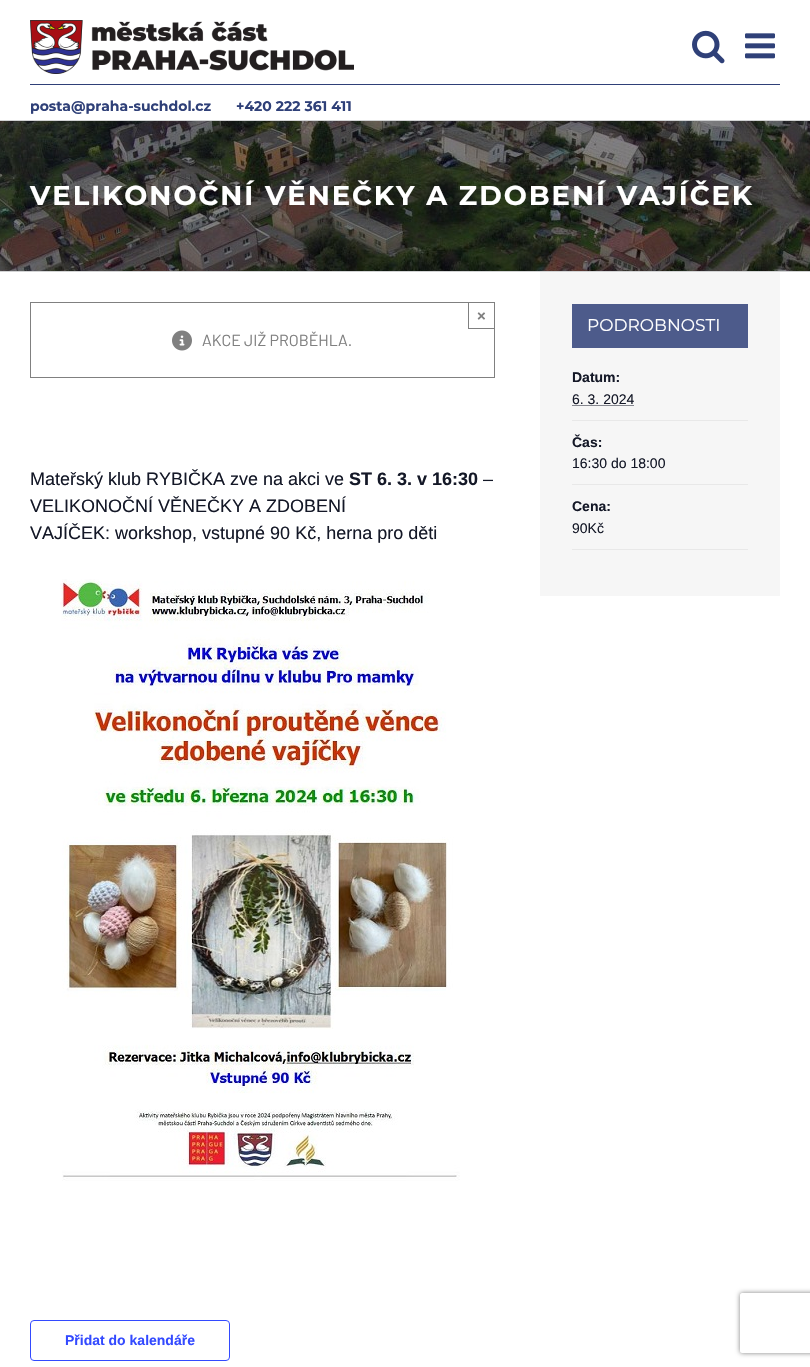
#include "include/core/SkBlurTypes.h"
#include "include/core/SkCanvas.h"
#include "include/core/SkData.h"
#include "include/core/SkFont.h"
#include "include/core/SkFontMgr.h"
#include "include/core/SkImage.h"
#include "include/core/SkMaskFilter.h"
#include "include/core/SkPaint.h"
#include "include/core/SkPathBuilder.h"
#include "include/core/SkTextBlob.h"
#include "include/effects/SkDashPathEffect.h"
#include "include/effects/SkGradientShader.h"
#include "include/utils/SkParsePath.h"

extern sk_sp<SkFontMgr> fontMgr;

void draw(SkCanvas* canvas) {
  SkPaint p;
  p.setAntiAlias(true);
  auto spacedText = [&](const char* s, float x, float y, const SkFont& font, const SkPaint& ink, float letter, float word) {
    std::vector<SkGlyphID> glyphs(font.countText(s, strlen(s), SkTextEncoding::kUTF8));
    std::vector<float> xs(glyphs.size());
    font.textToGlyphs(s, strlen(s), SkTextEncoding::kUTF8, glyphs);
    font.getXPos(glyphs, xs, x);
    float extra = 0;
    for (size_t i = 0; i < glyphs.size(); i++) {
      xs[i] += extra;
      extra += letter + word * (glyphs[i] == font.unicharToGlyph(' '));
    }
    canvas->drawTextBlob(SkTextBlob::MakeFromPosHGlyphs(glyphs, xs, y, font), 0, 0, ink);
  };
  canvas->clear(SK_ColorWHITE);
  canvas->drawImageRect(SkImages::DeferredFromEncodedData(SkData::MakeFromFileName("images/1.png")), SkRect::MakeLTRB(692, 30, 725, 64), SkSamplingOptions());
  canvas->drawImageRect(SkImages::DeferredFromEncodedData(SkData::MakeFromFileName("images/2.png")), SkRect::MakeLTRB(745, 33, 775, 59), SkSamplingOptions());
  canvas->drawImageRect(SkImages::DeferredFromEncodedData(SkData::MakeFromFileName("images/3.png")), SkRect::MakeLTRB(30, 20, 354, 74), SkSamplingOptions());
  p.setColor(SkColorSetRGB(47, 64, 120));
  canvas->drawRect(SkRect::MakeLTRB(30, 84, 780, 85), p);
  canvas->drawImageRect(SkImages::DeferredFromEncodedData(SkData::MakeFromFileName("images/4.png")), SkRect::MakeLTRB(0, 121, 810, 271), SkSamplingOptions());
  p.setColor(SkColorSetRGB(210, 211, 212));
  canvas->drawRect(SkRect::MakeLTRB(0, 120, 810, 121), p);
  canvas->drawRect(SkRect::MakeLTRB(0, 271, 810, 272), p);
  p.setStyle(SkPaint::kStroke_Style);
  p.setStrokeWidth(1);
  p.setColor(SkColorSetRGB(128, 128, 128));
  canvas->drawRect(SkRect::MakeLTRB(30.5f, 302.5f, 494.5f, 377.5f), p);
  canvas->drawRect(SkRect::MakeLTRB(468.5f, 302.5f, 494.5f, 328.5f), p);
  canvas->drawImageRect(SkImages::DeferredFromEncodedData(SkData::MakeFromFileName("images/5.png")), SkRect::MakeLTRB(172, 330, 192, 351), SkSamplingOptions());
  canvas->drawImageRect(SkImages::DeferredFromEncodedData(SkData::MakeFromFileName("images/6.png")), SkRect::MakeLTRB(60, 579, 460, 1181), SkSamplingOptions());
  p.setColor(SkColorSetRGB(51, 74, 255));
  canvas->drawRoundRect(SkRect::MakeLTRB(30.5f, 1320.5f, 229.5f, 1360.5f), 3.5f, 3.5f, p);
  p.setStyle(SkPaint::kFill_Style);
  p.setColor(SkColorSetRGB(246, 246, 246));
  canvas->drawRect(SkRect::MakeLTRB(540, 272, 780, 596), p);
  p.setColor(SkColorSetRGB(77, 91, 139));
  canvas->drawRect(SkRect::MakeLTRB(572, 304, 748, 348), p);
  p.setColor(SkColorSetRGB(232, 232, 232));
  canvas->drawRect(SkRect::MakeLTRB(572, 420, 748, 421), p);
  p.setStyle(SkPaint::kStroke_Style);
  p.setColor(SkColorSetRGB(20, 24, 39));
  p.setPathEffect(SkDashPathEffect::Make({{1, 1}}, 0));
  canvas->drawPath(SkPathBuilder().moveTo(572.5f, 405.5f).lineTo(634.5f, 405.5f).detach(), p);
  p.setPathEffect(nullptr);
  p.setStyle(SkPaint::kFill_Style);
  p.setColor(SkColorSetRGB(232, 232, 232));
  canvas->drawRect(SkRect::MakeLTRB(572, 484, 748, 485), p);
  canvas->drawRect(SkRect::MakeLTRB(572, 549, 748, 550), p);
  canvas->save();
  canvas->clipPath(SkPathBuilder(SkPathFillType::kEvenOdd).moveTo(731, 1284).lineTo(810, 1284).lineTo(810, 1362).lineTo(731, 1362).close().moveTo(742, 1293).lineTo(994, 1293).cubicTo(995, 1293, 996, 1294, 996, 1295).lineTo(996, 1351).cubicTo(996, 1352, 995, 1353, 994, 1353).lineTo(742, 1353).cubicTo(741, 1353, 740, 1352, 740, 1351).lineTo(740, 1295).cubicTo(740, 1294, 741, 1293, 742, 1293).close().detach(), true);
  p.setColor(SkColorSetRGB(128, 128, 128));
  p.setMaskFilter(SkMaskFilter::MakeBlur(kNormal_SkBlurStyle, 2.5f));
  canvas->drawRoundRect(SkRect::MakeLTRB(740, 1293, 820, 1353), 2, 2, p);
  p.setMaskFilter(nullptr);
  canvas->restore();
  SkFont font1(fontMgr->matchFamilyStyle("Montserrat", SkFontStyle::Bold()), 14);
  font1.setSubpixel(true);
  p.setColor(SkColorSetRGB(47, 64, 120));
  canvas->drawString("posta@praha-suchdol.cz", 30, 111, font1, p);
  canvas->drawString("+420 222 361 411", 236, 111, font1, p);
  SkFont font2(fontMgr->matchFamilyStyle("Montserrat", SkFontStyle::Bold()), 27.3f);
  font2.setSubpixel(true);
  p.setColor(SK_ColorWHITE);
  spacedText("VELIKONOČNÍ VĚNEČKY A ZDOBENÍ VAJÍČEK", 30, 205, font2, p, 2, 0);
  SkFont font3(fontMgr->matchFamilyStyle("Liberation Sans", SkFontStyle::Bold()), 15);
  font3.setSubpixel(true);
  p.setColor(SkColorSetRGB(128, 128, 128));
  canvas->drawString("×", 477, 321, font3, p);
  SkFont font4(fontMgr->matchFamilyStyle("Barlow", SkFontStyle::Normal()), 16);
  font4.setSubpixel(true);
  canvas->drawString("AKCE JIŽ PROBĚHLA.", 202, 346, font4, p);
  SkFont font5(fontMgr->matchFamilyStyle("Liberation Sans", SkFontStyle::Normal()), 18);
  font5.setSubpixel(true);
  p.setColor(SkColorSetRGB(20, 24, 39));
  canvas->drawString("Mateřský klub RYBIČKA zve na akci ve", 30, 485, font5, p);
  SkFont font6(fontMgr->matchFamilyStyle("Liberation Sans", SkFontStyle::Bold()), 18);
  font6.setSubpixel(true);
  canvas->drawString("ST 6. 3. v 16:30", 349, 485, font6, p);
  canvas->drawString("–", 483, 485, font5, p);
  canvas->drawString("VELIKONOČNÍ VĚNEČKY A ZDOBENÍ", 30, 512, font5, p);
  canvas->drawString("VAJÍČEK: workshop, vstupné 90 Kč, herna pro děti", 30, 539, font5, p);
  SkFont font7(fontMgr->matchFamilyStyle("Liberation Sans", SkFontStyle::Bold()), 14);
  font7.setSubpixel(true);
  p.setColor(SkColorSetRGB(51, 74, 255));
  canvas->drawString("Přidat do kalendáře", 65, 1345, font7, p);
  SkFont font8(fontMgr->matchFamilyStyle("Montserrat", SkFontStyle(100, SkFontStyle::kNormal_Width, SkFontStyle::kUpright_Slant)), 17);
  font8.setSubpixel(true);
  p.setColor(SK_ColorWHITE);
  canvas->drawString("PODROBNOSTI", 587, 331, font8, p);
  p.setColor(SkColorSetRGB(20, 24, 39));
  canvas->drawString("Datum:", 572, 382, font7, p);
  SkFont font9(fontMgr->matchFamilyStyle("Liberation Sans", SkFontStyle::Normal()), 14);
  font9.setSubpixel(true);
  canvas->drawString("6. 3. 2024", 572, 404, font9, p);
  canvas->drawString("Čas:", 572, 447, font7, p);
  canvas->drawString("16:30 do 18:00", 572, 468, font9, p);
  canvas->drawString("Cena:", 572, 511, font7, p);
  canvas->drawString("90Kč", 572, 533, font9, p);
}
